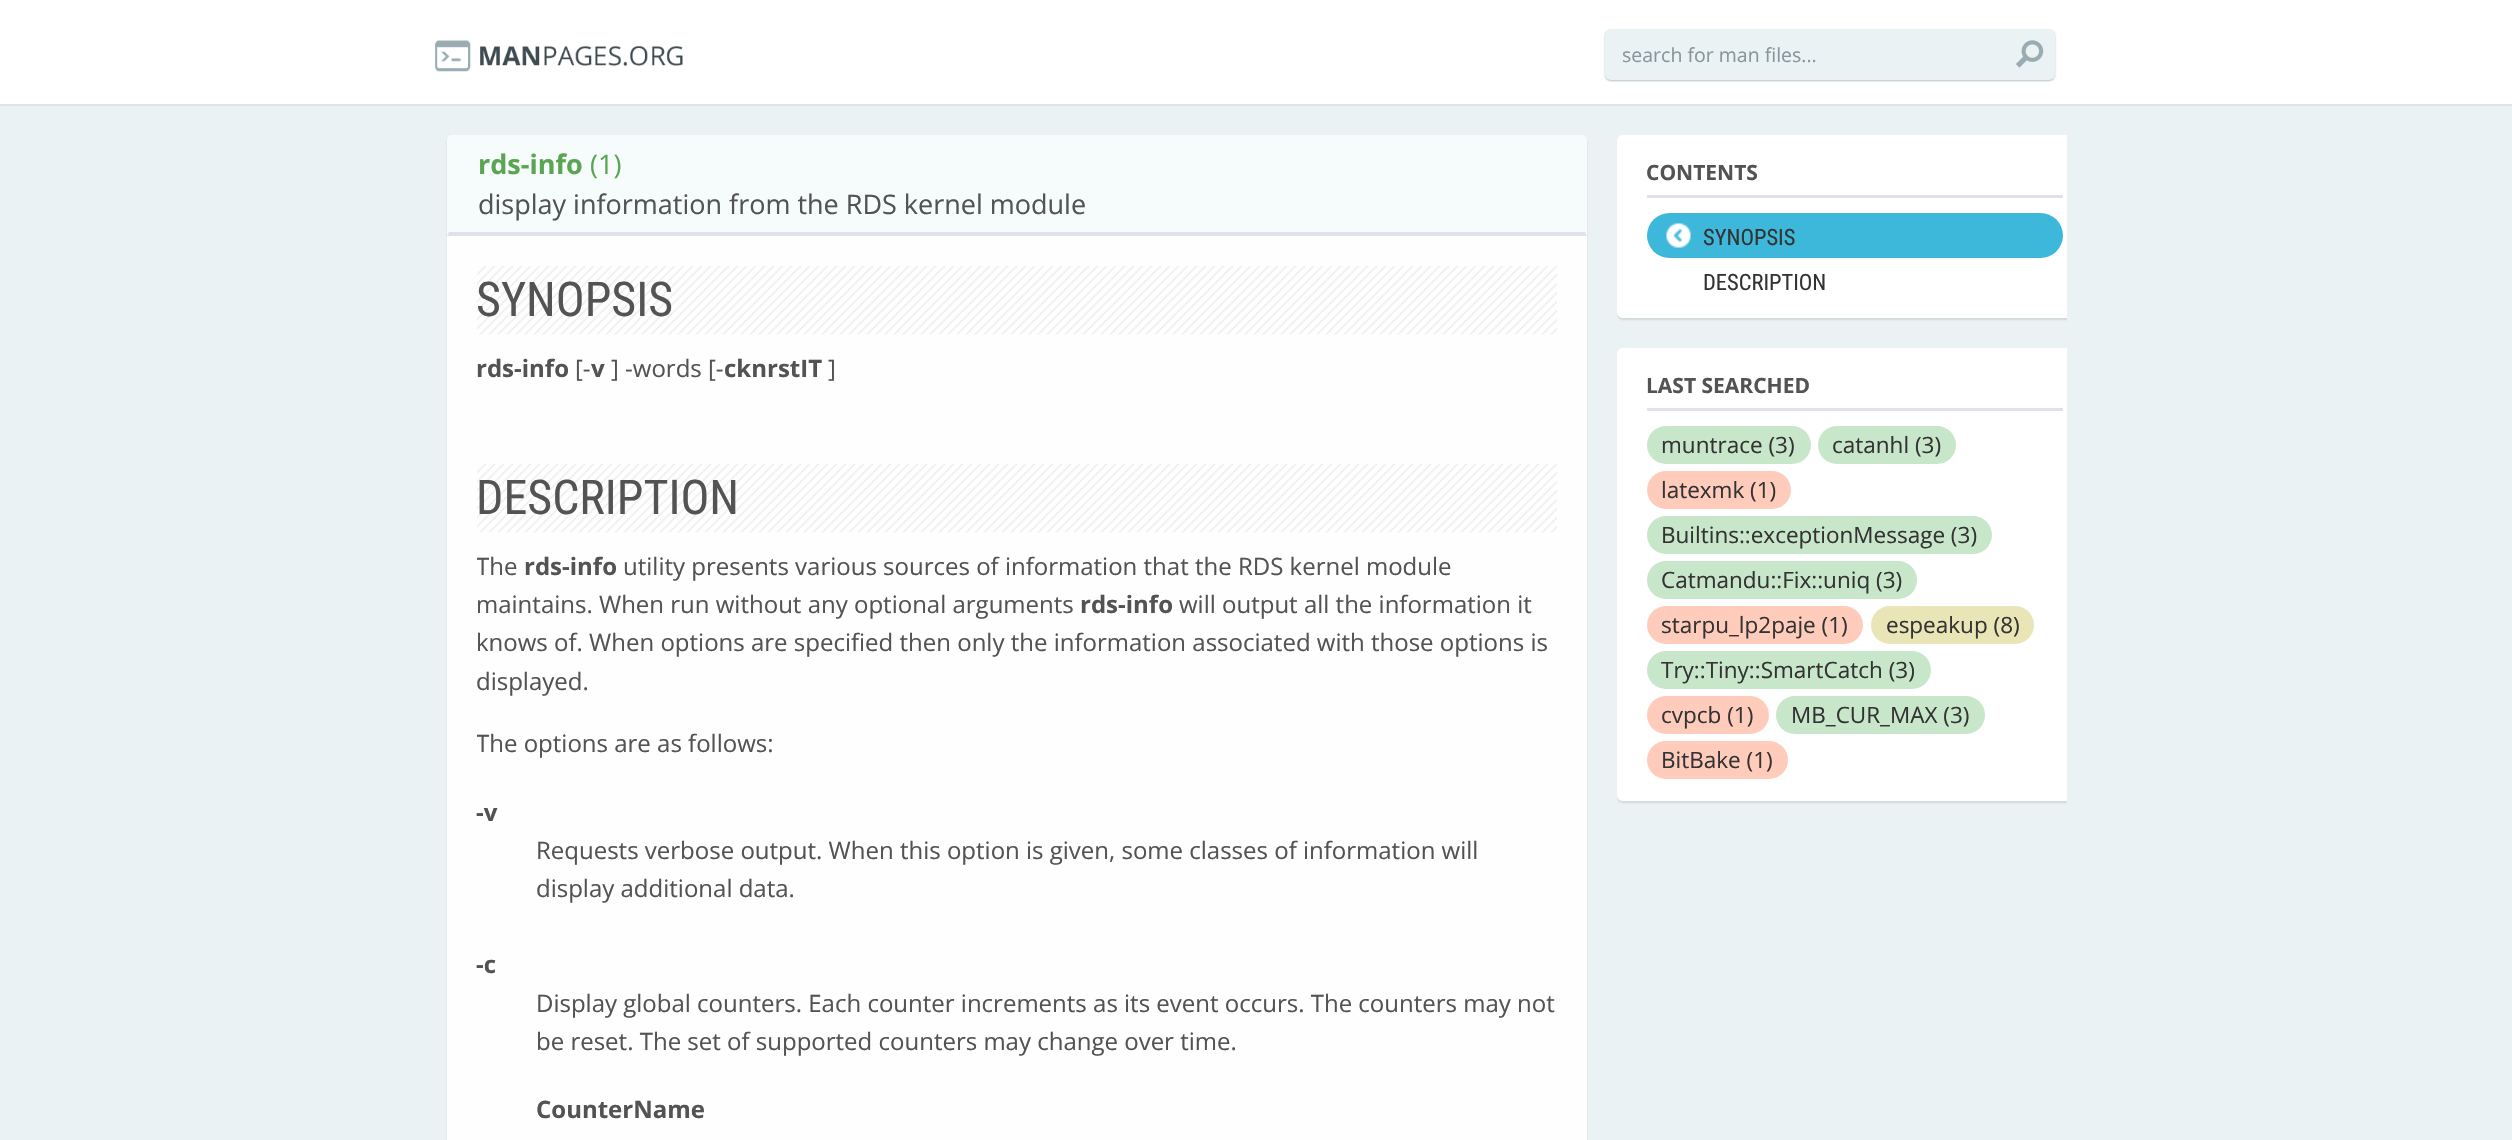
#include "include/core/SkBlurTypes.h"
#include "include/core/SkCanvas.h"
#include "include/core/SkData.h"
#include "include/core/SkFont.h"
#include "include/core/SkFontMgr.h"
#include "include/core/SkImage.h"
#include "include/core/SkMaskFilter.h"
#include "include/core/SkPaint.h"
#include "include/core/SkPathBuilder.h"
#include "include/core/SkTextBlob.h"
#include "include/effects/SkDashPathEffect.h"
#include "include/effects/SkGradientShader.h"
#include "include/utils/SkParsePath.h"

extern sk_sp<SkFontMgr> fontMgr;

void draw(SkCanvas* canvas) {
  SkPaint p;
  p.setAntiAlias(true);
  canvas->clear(SkColorSetRGB(234, 242, 244));
  p.setColor(SK_ColorWHITE);
  canvas->drawRect(SkRect::MakeLTRB(0, 0, 2512, 104), p);
  p.setColor(SkColorSetRGB(220, 229, 231));
  canvas->drawRect(SkRect::MakeLTRB(0, 104, 2512, 106), p);
  canvas->drawImageRect(SkImages::DeferredFromEncodedData(SkData::MakeFromFileName("images/1.png")), SkRect::MakeLTRB(435, 40, 683, 72), SkSamplingOptions());
  p.setColor(SkColorSetARGB(77, 6, 47, 55));
  p.setMaskFilter(SkMaskFilter::MakeBlur(kNormal_SkBlurStyle, 1));
  canvas->drawRoundRect(SkRect::MakeLTRB(1605, 30, 2055, 81), 6, 6, p);
  p.setMaskFilter(nullptr);
  p.setColor(SkColorSetRGB(234, 242, 244));
  canvas->drawRoundRect(SkRect::MakeLTRB(1605, 29, 2055, 80), 6, 6, p);
  canvas->drawImageRect(SkImages::DeferredFromEncodedData(SkData::MakeFromFileName("images/2.png")), SkRect::MakeLTRB(2016, 40, 2044, 68), SkSamplingOptions());
  p.setColor(SkColorSetARGB(26, 0, 0, 0));
  p.setMaskFilter(SkMaskFilter::MakeBlur(kNormal_SkBlurStyle, 1));
  canvas->drawRoundRect(SkRect::MakeLTRB(447, 137, 1587, 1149), 6, 6, p);
  p.setMaskFilter(nullptr);
  p.setColor(SkColorSetRGB(254, 254, 254));
  canvas->drawPath(SkPathBuilder().moveTo(453, 135).lineTo(1581, 135).cubicTo(1584.5f, 135, 1587, 137.5f, 1587, 141).lineTo(1587, 1140).lineTo(447, 1140).lineTo(447, 141).cubicTo(447, 137.5f, 449.5f, 135, 453, 135).close().detach(), p);
  p.setColor(SkColorSetRGB(246, 251, 252));
  canvas->drawPath(SkPathBuilder().moveTo(452, 135).lineTo(1582, 135).cubicTo(1585, 135, 1587, 137, 1587, 140).lineTo(1587, 236).lineTo(447, 236).lineTo(447, 140).cubicTo(447, 137, 449, 135, 452, 135).close().detach(), p);
  p.setColor(SkColorSetRGB(223, 227, 233));
  canvas->drawPath(SkPathBuilder().moveTo(1587, 236).lineTo(447, 236).lineTo(449, 232).lineTo(1585, 232).close().detach(), p);
  canvas->drawImageRect(SkImages::DeferredFromEncodedData(SkData::MakeFromFileName("images/3.png")), SkRect::MakeLTRB(477, 266, 1557, 335), SkSamplingOptions());
  canvas->drawImageRect(SkImages::DeferredFromEncodedData(SkData::MakeFromFileName("images/3.png")), SkRect::MakeLTRB(477, 464, 1557, 533), SkSamplingOptions());
  canvas->save();
  canvas->clipRect(SkRect::MakeLTRB(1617, 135, 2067, 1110));
  p.setColor(SkColorSetARGB(26, 0, 0, 0));
  p.setMaskFilter(SkMaskFilter::MakeBlur(kNormal_SkBlurStyle, 1));
  canvas->drawRoundRect(SkRect::MakeLTRB(1617, 137, 2093, 320), 6, 6, p);
  p.setMaskFilter(nullptr);
  canvas->restore();
  p.setColor(SK_ColorWHITE);
  canvas->drawPath(SkPathBuilder().moveTo(1623, 135).lineTo(2067, 135).lineTo(2067, 318).lineTo(1623, 318).cubicTo(1619.5f, 318, 1617, 315.5f, 1617, 312).lineTo(1617, 141).cubicTo(1617, 137.5f, 1619.5f, 135, 1623, 135).close().detach(), p);
  p.setColor(SkColorSetRGB(223, 227, 233));
  canvas->drawRect(SkRect::MakeLTRB(1647, 195, 2063, 198), p);
  p.setColor(SkColorSetRGB(61, 184, 219));
  canvas->drawRoundRect(SkRect::MakeLTRB(1647, 213, 2063, 258), 22.5f, 22.5f, p);
  canvas->drawImageRect(SkImages::DeferredFromEncodedData(SkData::MakeFromFileName("images/4.png")), SkRect::MakeLTRB(1666, 223, 1691, 248), SkSamplingOptions());
  canvas->save();
  canvas->clipRect(SkRect::MakeLTRB(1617, 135, 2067, 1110));
  p.setColor(SkColorSetARGB(26, 0, 0, 0));
  p.setMaskFilter(SkMaskFilter::MakeBlur(kNormal_SkBlurStyle, 1));
  canvas->drawRoundRect(SkRect::MakeLTRB(1617, 350, 2093, 803), 6, 6, p);
  p.setMaskFilter(nullptr);
  canvas->restore();
  p.setColor(SK_ColorWHITE);
  canvas->drawPath(SkPathBuilder().moveTo(1623, 348).lineTo(2067, 348).lineTo(2067, 801).lineTo(1623, 801).cubicTo(1619.5f, 801, 1617, 798.5f, 1617, 795).lineTo(1617, 354).cubicTo(1617, 350.5f, 1619.5f, 348, 1623, 348).close().detach(), p);
  p.setColor(SkColorSetRGB(223, 227, 233));
  canvas->drawRect(SkRect::MakeLTRB(1647, 408, 2063, 411), p);
  p.setColor(SkColorSetRGB(200, 230, 201));
  canvas->drawRoundRect(SkRect::MakeLTRB(1647, 426, 1811, 464), 19, 19, p);
  canvas->drawRoundRect(SkRect::MakeLTRB(1818, 426, 1956, 464), 19, 19, p);
  p.setColor(SkColorSetRGB(255, 204, 188));
  canvas->drawRoundRect(SkRect::MakeLTRB(1647, 471, 1791, 509), 19, 19, p);
  p.setColor(SkColorSetRGB(200, 230, 201));
  canvas->drawRoundRect(SkRect::MakeLTRB(1647, 516, 1992, 554), 19, 19, p);
  canvas->drawRoundRect(SkRect::MakeLTRB(1647, 561, 1917, 599), 19, 19, p);
  p.setColor(SkColorSetRGB(255, 204, 188));
  canvas->drawRoundRect(SkRect::MakeLTRB(1647, 606, 1863, 644), 19, 19, p);
  p.setColor(SkColorSetRGB(234, 229, 183));
  canvas->drawRoundRect(SkRect::MakeLTRB(1871, 606, 2034, 644), 19, 19, p);
  p.setColor(SkColorSetRGB(200, 230, 201));
  canvas->drawRoundRect(SkRect::MakeLTRB(1647, 651, 1931, 689), 19, 19, p);
  p.setColor(SkColorSetRGB(255, 204, 188));
  canvas->drawRoundRect(SkRect::MakeLTRB(1647, 696, 1769, 734), 19, 19, p);
  p.setColor(SkColorSetRGB(200, 230, 201));
  canvas->drawRoundRect(SkRect::MakeLTRB(1776, 696, 1985, 734), 19, 19, p);
  p.setColor(SkColorSetRGB(255, 204, 188));
  canvas->drawRoundRect(SkRect::MakeLTRB(1647, 741, 1788, 779), 19, 19, p);
  SkFont font1(fontMgr->matchFamilyStyle("Open Sans", SkFontStyle::Normal()), 19.5f);
  font1.setSubpixel(true);
  p.setColor(SkColorSetRGB(134, 150, 157));
  canvas->drawString("search for man files...", 1622, 62, font1, p);
  SkFont font2(fontMgr->matchFamilyStyle("Open Sans", SkFontStyle::Bold()), 27);
  font2.setSubpixel(true);
  p.setColor(SkColorSetRGB(89, 165, 82));
  canvas->drawString("rds-info", 478, 174, font2, p);
  SkFont font3(fontMgr->matchFamilyStyle("Open Sans", SkFontStyle::Normal()), 27);
  font3.setSubpixel(true);
  canvas->drawString("(1)", 590, 174, font3, p);
  p.setColor(SkColorSetRGB(83, 83, 83));
  canvas->drawString("display information from the RDS kernel module", 478, 214, font3, p);
  SkFont font4(fontMgr->matchFamilyStyle("Roboto Condensed", SkFontStyle::Normal()), 48);
  font4.setSubpixel(true);
  canvas->drawString("SYNOPSIS", 476, 316, font4, p);
  SkFont font5(fontMgr->matchFamilyStyle("Open Sans", SkFontStyle::Bold()), 24);
  font5.setSubpixel(true);
  canvas->drawString("rds-info", 476, 377, font5, p);
  SkFont font6(fontMgr->matchFamilyStyle("Open Sans", SkFontStyle::Normal()), 24);
  font6.setSubpixel(true);
  canvas->drawString("[-", 575, 377, font6, p);
  canvas->drawString("v", 591, 377, font5, p);
  canvas->drawString("] -words [-", 611, 377, font6, p);
  canvas->drawString("cknrstIT", 724, 377, font5, p);
  canvas->drawString("]", 828, 377, font6, p);
  canvas->drawString("DESCRIPTION", 476, 514, font4, p);
  canvas->save();
  canvas->clipRect(SkRect::MakeLTRB(477, 464, 1557, 1140));
  canvas->drawString("The", 476, 575, font6, p);
  canvas->restore();
  canvas->drawString("rds-info", 524, 575, font5, p);
  canvas->drawString("utility presents various sources of information that the RDS kernel module", 623, 575, font6, p);
  canvas->drawString("maintains. When run without any optional arguments", 476, 613, font6, p);
  canvas->drawString("rds-info", 1080, 613, font5, p);
  canvas->drawString("will output all the information it", 1179, 613, font6, p);
  canvas->drawString("knows of. When options are specified then only the information associated with those options is", 476, 651, font6, p);
  canvas->drawString("displayed.", 476, 690, font6, p);
  canvas->save();
  canvas->clipRect(SkRect::MakeLTRB(477, 464, 1557, 1140));
  canvas->drawString("The options are as follows:", 476, 752, font6, p);
  canvas->restore();
  canvas->drawString("-v", 476, 821, font5, p);
  canvas->drawString("Requests verbose output. When this option is given, some classes of information will", 536, 859, font6, p);
  canvas->drawString("display additional data.", 536, 897, font6, p);
  canvas->drawString("-c", 476, 973, font5, p);
  canvas->drawString("Display global counters. Each counter increments as its event occurs. The counters may not", 536, 1012, font6, p);
  canvas->drawString("be reset. The set of supported counters may change over time.", 536, 1050, font6, p);
  canvas->drawString("CounterName", 536, 1118, font5, p);
  SkFont font7(fontMgr->matchFamilyStyle("Open Sans", SkFontStyle::Bold()), 21);
  font7.setSubpixel(true);
  canvas->drawString("CONTENTS", 1646, 180, font7, p);
  SkFont font8(fontMgr->matchFamilyStyle("Roboto Condensed", SkFontStyle::Normal()), 22.5f);
  font8.setSubpixel(true);
  p.setColor(SkColorSetRGB(51, 51, 51));
  canvas->drawString("SYNOPSIS", 1703, 245, font8, p);
  canvas->drawString("DESCRIPTION", 1703, 290, font8, p);
  p.setColor(SkColorSetRGB(83, 83, 83));
  canvas->drawString("LAST SEARCHED", 1646, 393, font7, p);
  SkFont font9(fontMgr->matchFamilyStyle("Open Sans", SkFontStyle::Normal()), 22.5f);
  font9.setSubpixel(true);
  p.setColor(SkColorSetRGB(51, 51, 51));
  canvas->drawString("muntrace (3)", 1661, 453, font9, p);
  canvas->drawString("catanhl (3)", 1832, 453, font9, p);
  canvas->drawString("latexmk (1)", 1661, 498, font9, p);
  canvas->drawString("Builtins::exceptionMessage (3)", 1661, 543, font9, p);
  canvas->drawString("Catmandu::Fix::uniq (3)", 1661, 588, font9, p);
  canvas->drawString("starpu_lp2paje (1)", 1661, 633, font9, p);
  canvas->drawString("espeakup (8)", 1886, 633, font9, p);
  canvas->drawString("Try::Tiny::SmartCatch (3)", 1661, 678, font9, p);
  canvas->drawString("cvpcb (1)", 1661, 723, font9, p);
  canvas->drawString("MB_CUR_MAX (3)", 1791, 723, font9, p);
  canvas->drawString("BitBake (1)", 1661, 768, font9, p);
}
